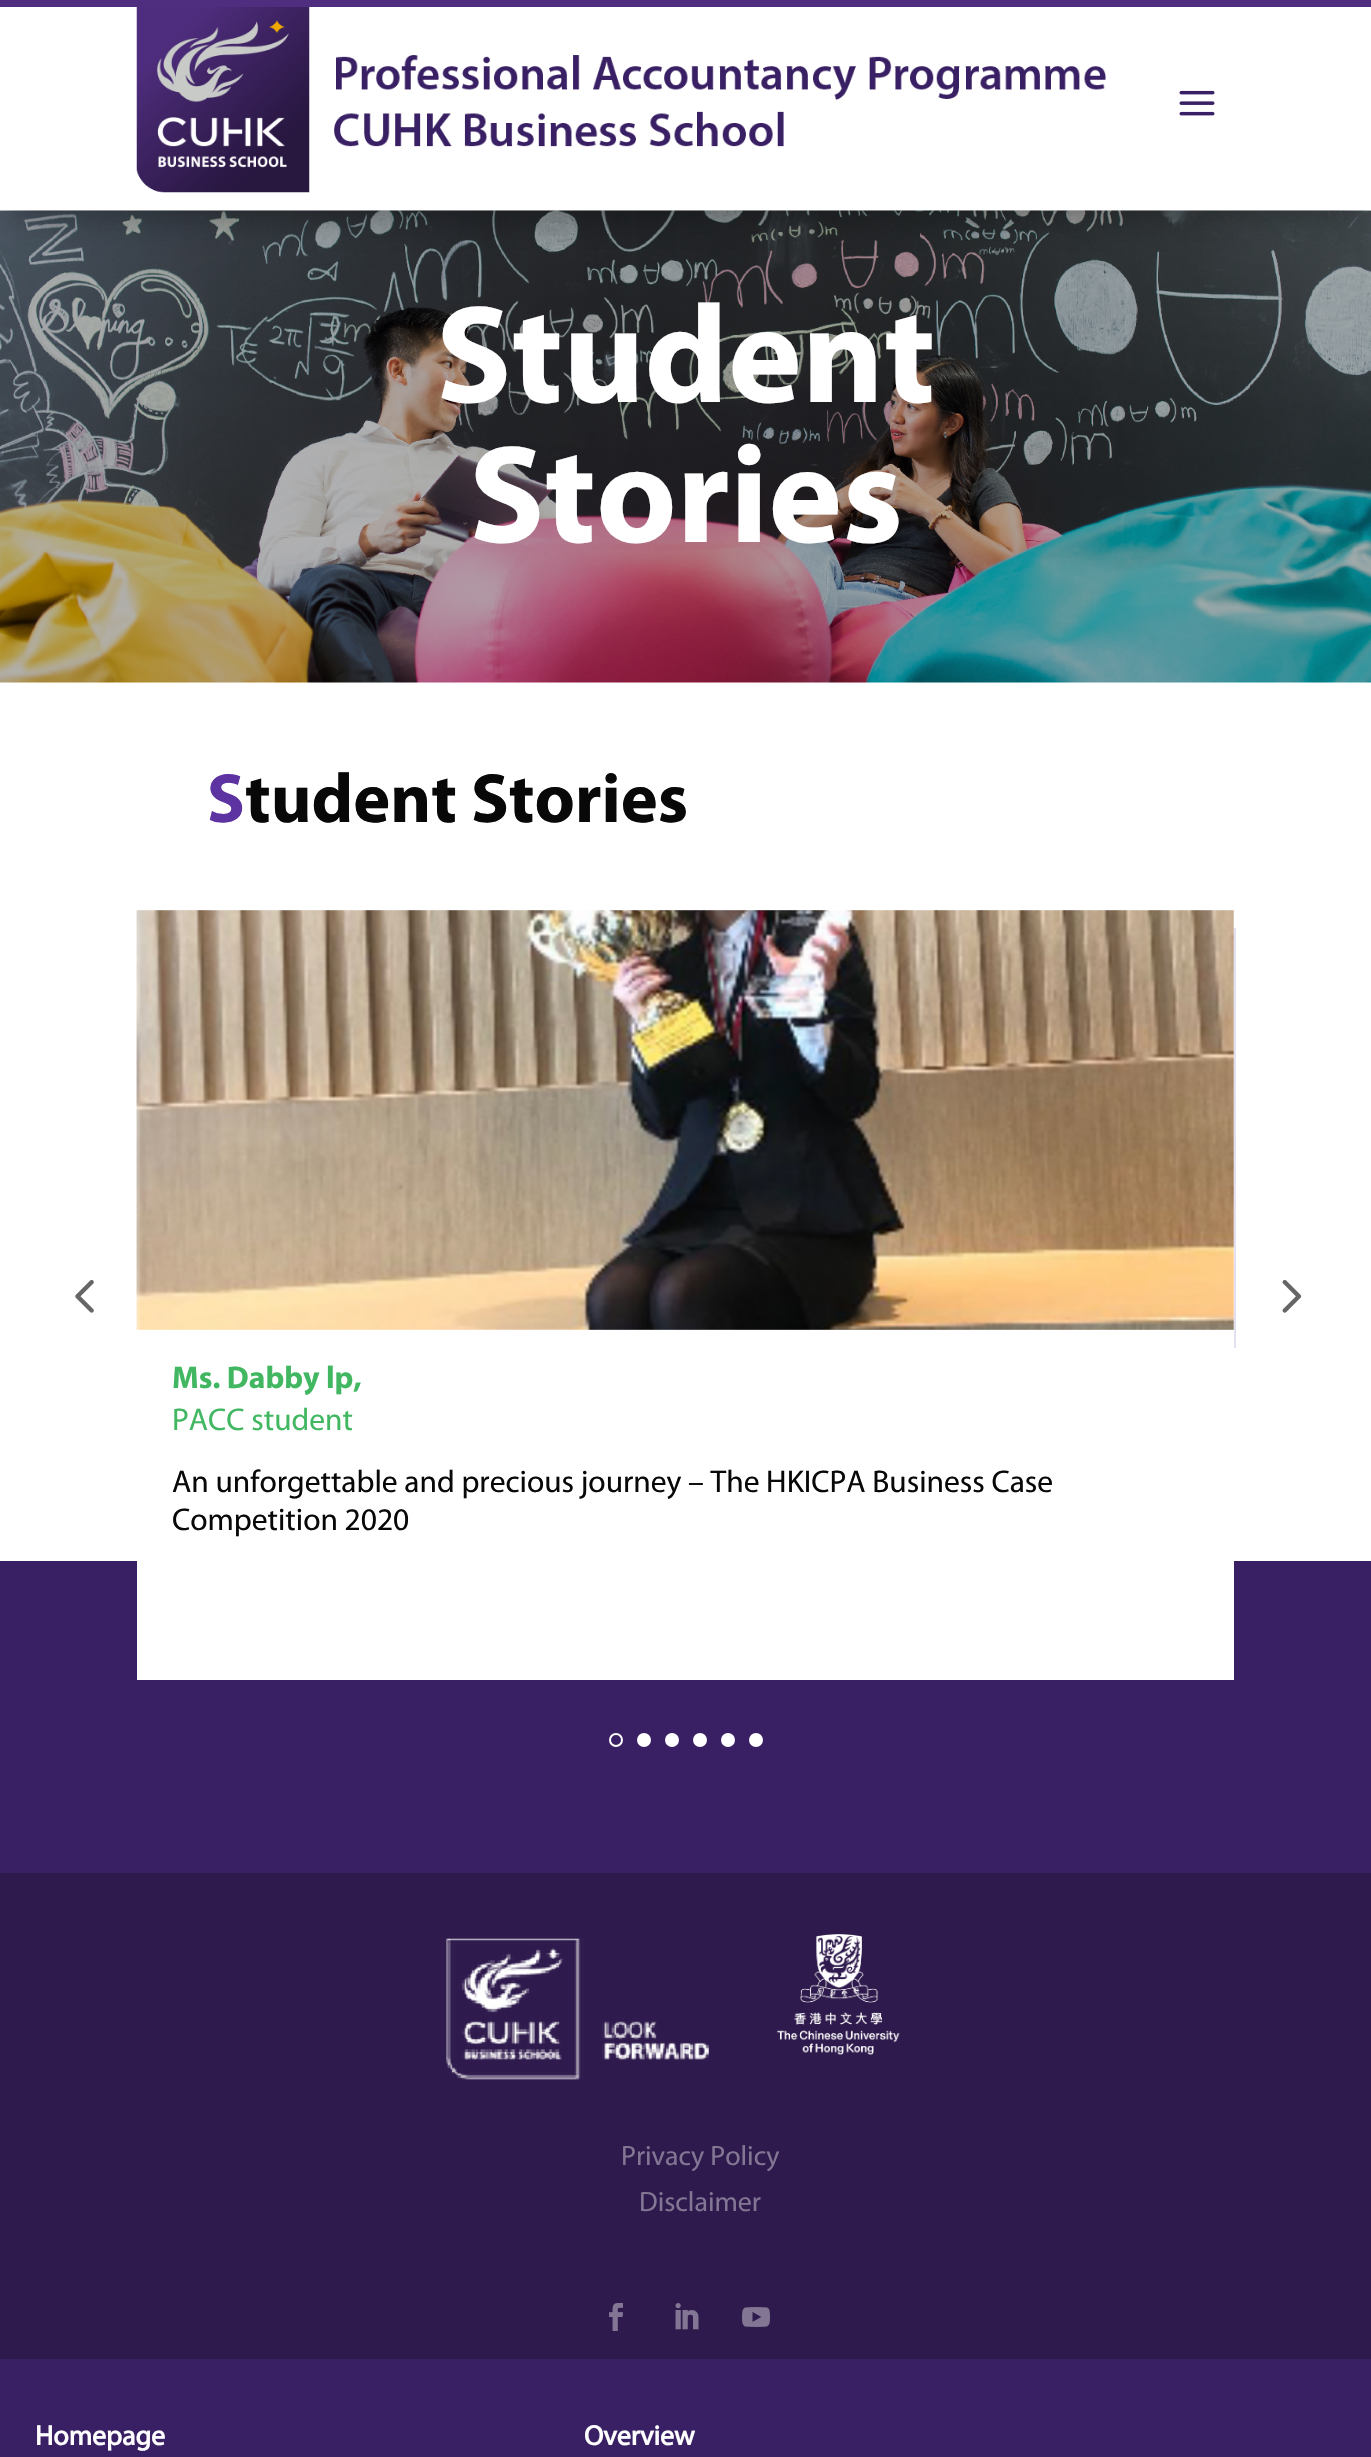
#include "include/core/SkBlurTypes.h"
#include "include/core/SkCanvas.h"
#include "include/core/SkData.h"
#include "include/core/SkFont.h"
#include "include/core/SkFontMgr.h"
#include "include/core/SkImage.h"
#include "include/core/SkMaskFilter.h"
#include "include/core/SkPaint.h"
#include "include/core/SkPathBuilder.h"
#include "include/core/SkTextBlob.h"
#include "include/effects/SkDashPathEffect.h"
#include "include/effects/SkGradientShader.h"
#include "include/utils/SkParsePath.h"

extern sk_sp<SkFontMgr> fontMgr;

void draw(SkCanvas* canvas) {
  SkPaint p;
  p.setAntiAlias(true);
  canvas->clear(SK_ColorWHITE);
  canvas->drawImageRect(SkImages::DeferredFromEncodedData(SkData::MakeFromFileName("images/3.png")), SkRect::MakeLTRB(0, 210, 1371, 683), SkSamplingOptions());
  p.setColor(SkColorSetARGB(77, 0, 0, 0));
  p.setMaskFilter(SkMaskFilter::MakeBlur(kNormal_SkBlurStyle, 16));
  canvas->drawRect(SkRect::MakeLTRB(11, 32, 1362, 221), p);
  p.setMaskFilter(nullptr);
  p.setColor(SK_ColorWHITE);
  canvas->drawRect(SkRect::MakeLTRB(0, 7, 1371, 210), p);
  p.setColor(SkColorSetRGB(79, 45, 127));
  canvas->drawRect(SkRect::MakeLTRB(0, 0, 1371, 7), p);
  canvas->drawImageRect(SkImages::DeferredFromEncodedData(SkData::MakeFromFileName("images/1.png")), SkRect::MakeLTRB(136, 7, 1106, 193), SkSamplingOptions());
  canvas->drawImageRect(SkImages::DeferredFromEncodedData(SkData::MakeFromFileName("images/2.png")), SkRect::MakeLTRB(1179, 90, 1215, 116), SkSamplingOptions());
  p.setColor(SkColorSetRGB(57, 32, 100));
  canvas->drawRect(SkRect::MakeLTRB(0, 1561, 1371, 1873), p);
  canvas->drawImageRect(SkImages::DeferredFromEncodedData(SkData::MakeFromFileName("images/4.png")), SkRect::MakeLTRB(75, 1279, 94, 1313), SkSamplingOptions());
  canvas->drawImageRect(SkImages::DeferredFromEncodedData(SkData::MakeFromFileName("images/5.png")), SkRect::MakeLTRB(1282, 1279, 1302, 1313), SkSamplingOptions());
  p.setColor(SK_ColorWHITE);
  canvas->drawRect(SkRect::MakeLTRB(137, 1561, 1234, 1680), p);
  canvas->drawImageRect(SkImages::DeferredFromEncodedData(SkData::MakeFromFileName("images/6.png")), SkRect::MakeLTRB(136, 910, 1234, 1330), SkSamplingOptions());
  p.setColor(SkColorSetRGB(227, 225, 241));
  canvas->drawRect(SkRect::MakeLTRB(1234, 928, 1236, 1348), p);
  p.setStyle(SkPaint::kStroke_Style);
  p.setStrokeWidth(2);
  p.setColor(SK_ColorWHITE);
  canvas->drawCircle(616, 1740, 6, p);
  p.setStyle(SkPaint::kFill_Style);
  canvas->drawCircle(644, 1740, 7, p);
  canvas->drawCircle(672, 1740, 7, p);
  canvas->drawCircle(700, 1740, 7, p);
  canvas->drawCircle(728, 1740, 7, p);
  canvas->drawCircle(756, 1740, 7, p);
  p.setColor(SkColorSetRGB(46, 26, 76));
  canvas->drawRect(SkRect::MakeLTRB(0, 1873, 1371, 2359), p);
  canvas->drawImageRect(SkImages::DeferredFromEncodedData(SkData::MakeFromFileName("images/7.png")), SkRect::MakeLTRB(446, 1938, 709, 2080), SkSamplingOptions());
  canvas->drawImageRect(SkImages::DeferredFromEncodedData(SkData::MakeFromFileName("images/8.png")), SkRect::MakeLTRB(777, 1934, 900, 2055), SkSamplingOptions());
  canvas->drawImageRect(SkImages::DeferredFromEncodedData(SkData::MakeFromFileName("images/9.png")), SkRect::MakeLTRB(609, 2303, 623, 2331), SkSamplingOptions());
  canvas->drawImageRect(SkImages::DeferredFromEncodedData(SkData::MakeFromFileName("images/10.png")), SkRect::MakeLTRB(675, 2303, 699, 2330), SkSamplingOptions());
  canvas->drawImageRect(SkImages::DeferredFromEncodedData(SkData::MakeFromFileName("images/11.png")), SkRect::MakeLTRB(742, 2307, 770, 2327), SkSamplingOptions());
  p.setColor(SkColorSetRGB(57, 32, 100));
  canvas->drawRect(SkRect::MakeLTRB(0, 2359, 1371, 2457), p);
  SkFont font1(fontMgr->matchFamilyStyle("Myriad", SkFontStyle::Bold()), 140);
  font1.setSubpixel(true);
  p.setColor(SK_ColorWHITE);
  canvas->drawString("Student", 436, 402, font1, p);
  canvas->drawString("Stories", 469, 542, font1, p);
  SkFont font2(fontMgr->matchFamilyStyle("Myriad", SkFontStyle::Bold()), 70);
  font2.setSubpixel(true);
  p.setColor(SkColorSetRGB(92, 51, 161));
  canvas->drawString("S", 207, 822, font2, p);
  p.setColor(SkColorSetRGB(9, 8, 8));
  canvas->drawString("tudent Stories", 245, 822, font2, p);
  SkFont font3(fontMgr->matchFamilyStyle("Myriad", SkFontStyle::Bold()), 31.5f);
  font3.setSubpixel(true);
  p.setColor(SkColorSetRGB(66, 183, 98));
  canvas->drawString("Ms. Dabby lp,", 172, 1388, font3, p);
  SkFont font4(fontMgr->matchFamilyStyle("Myriad", SkFontStyle::Normal()), 31.5f);
  font4.setSubpixel(true);
  canvas->drawString("PACC student", 172, 1430, font4, p);
  p.setColor(SkColorSetRGB(9, 8, 8));
  canvas->drawString("An unforgettable and precious journey – The HKICPA Business Case", 172, 1492, font4, p);
  canvas->drawString("Competition 2020", 172, 1530, font4, p);
  SkFont font5(fontMgr->matchFamilyStyle("Myriad", SkFontStyle::Normal()), 28);
  font5.setSubpixel(true);
  p.setColor(SkColorSetRGB(130, 118, 148));
  canvas->drawString("Privacy Policy", 621, 2165, font5, p);
  canvas->drawString("Disclaimer", 639, 2211, font5, p);
  SkFont font6(fontMgr->matchFamilyStyle("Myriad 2", SkFontStyle::Bold()), 28);
  font6.setSubpixel(true);
  p.setColor(SK_ColorWHITE);
  canvas->drawString("Homepage", 35, 2445, font6, p);
  canvas->drawString("Overview", 584, 2445, font6, p);
}
